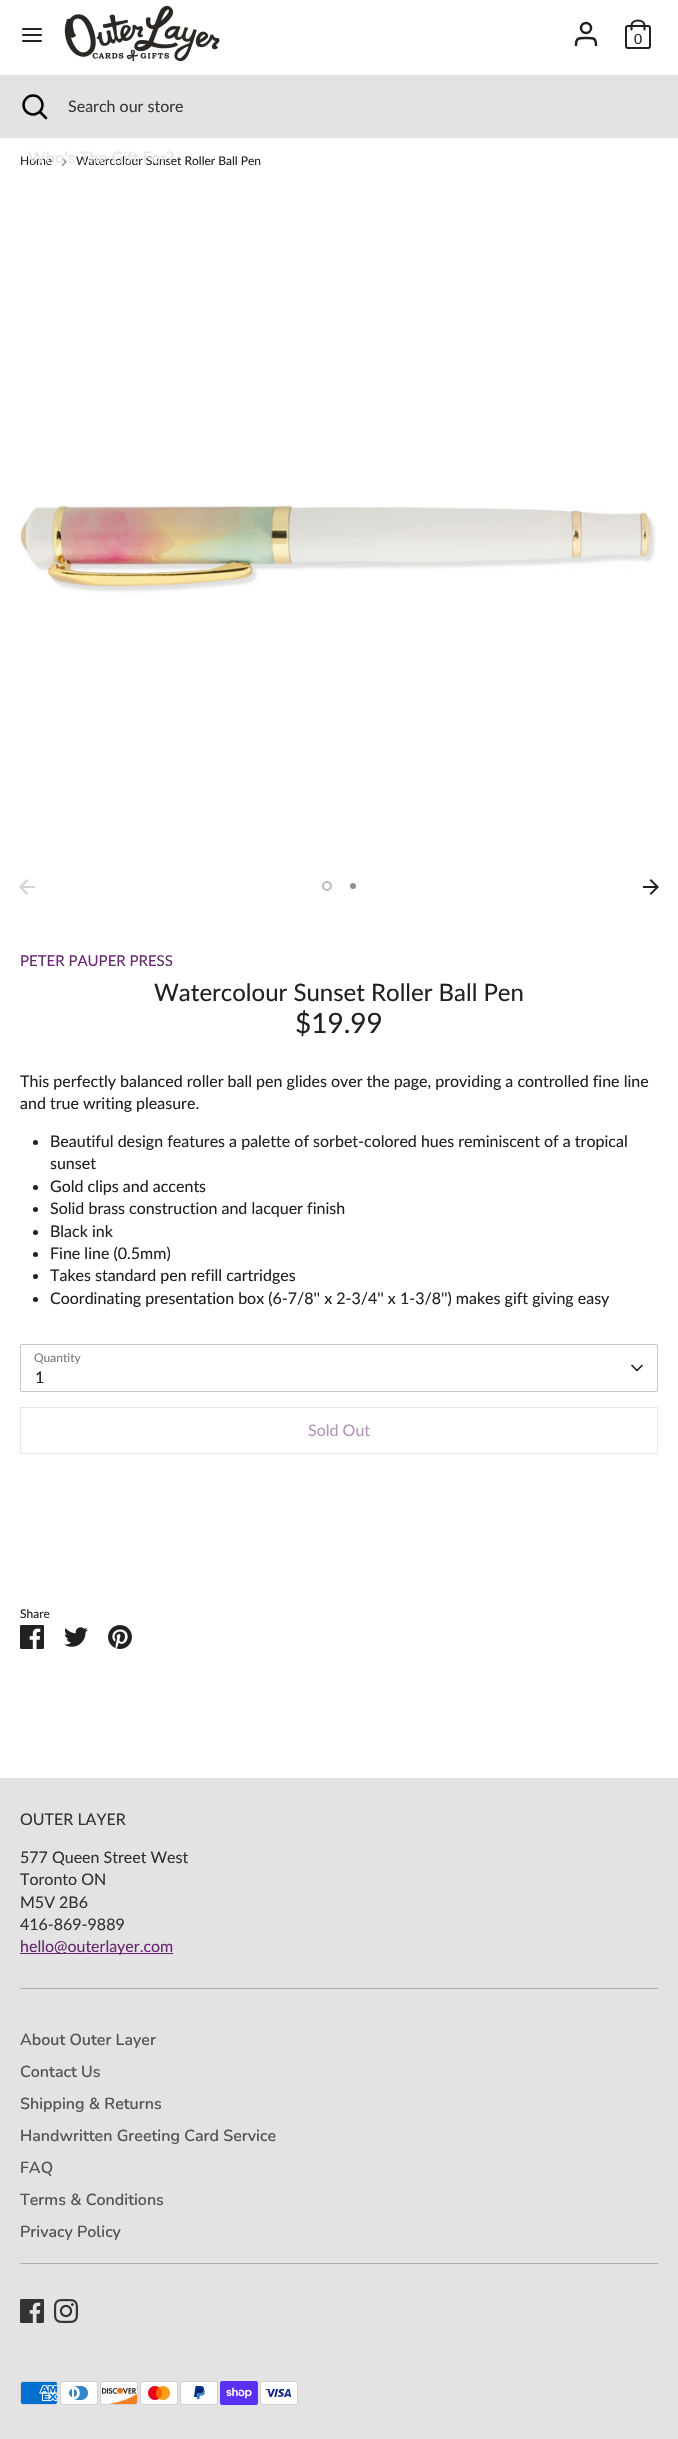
#include "include/core/SkBlurTypes.h"
#include "include/core/SkCanvas.h"
#include "include/core/SkData.h"
#include "include/core/SkFont.h"
#include "include/core/SkFontMgr.h"
#include "include/core/SkImage.h"
#include "include/core/SkMaskFilter.h"
#include "include/core/SkPaint.h"
#include "include/core/SkPathBuilder.h"
#include "include/core/SkTextBlob.h"
#include "include/effects/SkDashPathEffect.h"
#include "include/effects/SkGradientShader.h"
#include "include/utils/SkParsePath.h"

extern sk_sp<SkFontMgr> fontMgr;

void draw(SkCanvas* canvas) {
  SkPaint p;
  p.setAntiAlias(true);
  canvas->clear(SK_ColorWHITE);
  p.setStyle(SkPaint::kStroke_Style);
  p.setStrokeWidth(2);
  p.setStrokeCap(SkPaint::kRound_Cap);
  p.setColor(SkColorSetRGB(33, 33, 33));
  canvas->drawPath(SkPathBuilder().moveTo(23, 35).lineTo(41, 35).moveTo(23, 29).lineTo(41, 29).moveTo(23, 41).lineTo(41, 41).detach(), p);
  canvas->drawImageRect(SkImages::DeferredFromEncodedData(SkData::MakeFromFileName("images/1.png")), SkRect::MakeLTRB(64, 5, 220, 62), SkSamplingOptions());
  p.setStrokeWidth(2.5f);
  canvas->drawPath(SkPathBuilder().moveTo(596, 45).cubicTo(596, 37.5f, 593, 38, 586, 38).cubicTo(579, 38, 576, 37.5f, 576, 45).detach(), p);
  p.setStrokeCap(SkPaint::kButt_Cap);
  canvas->drawCircle(586, 28, 5, p);
  p.setStrokeWidth(2);
  canvas->drawRoundRect(SkRect::MakeLTRB(626, 26, 650, 48), 2, 2, p);
  p.setStrokeWidth(2.1f);
  p.setStrokeCap(SkPaint::kRound_Cap);
  canvas->drawPath(SkPathBuilder().moveTo(631.5f, 29.5f).lineTo(631.5f, 25.5f).cubicTo(631.5f, 22.5f, 634.5f, 20.5f, 638, 20.5f).cubicTo(641.5f, 20.5f, 644.5f, 22.5f, 644.5f, 25.5f).lineTo(644.5f, 29.5f).detach(), p);
  p.setStyle(SkPaint::kFill_Style);
  p.setColor(SkColorSetRGB(227, 227, 227));
  canvas->drawRect(SkRect::MakeLTRB(0, 75, 678, 138), p);
  p.setStyle(SkPaint::kStroke_Style);
  p.setStrokeWidth(2.5f);
  p.setStrokeCap(SkPaint::kButt_Cap);
  p.setColor(SK_ColorBLACK);
  canvas->drawCircle(33, 105, 9.5f, p);
  p.setStrokeCap(SkPaint::kRound_Cap);
  canvas->drawPath(SkPathBuilder().moveTo(46, 118).lineTo(40, 112).detach(), p);
  canvas->drawImageRect(SkImages::DeferredFromEncodedData(SkData::MakeFromFileName("images/2.png")), SkRect::MakeLTRB(61, 157, 67, 167), SkSamplingOptions());
  canvas->drawImageRect(SkImages::DeferredFromEncodedData(SkData::MakeFromFileName("images/3.png")), SkRect::MakeLTRB(20, 504, 656, 593), SkSamplingOptions());
  canvas->drawImageRect(SkImages::DeferredFromEncodedData(SkData::MakeFromFileName("images/4.png")), SkRect::MakeLTRB(19, 879, 35, 895), SkSamplingOptions());
  canvas->drawImageRect(SkImages::DeferredFromEncodedData(SkData::MakeFromFileName("images/5.png")), SkRect::MakeLTRB(643, 879, 659, 895), SkSamplingOptions());
  p.setStrokeWidth(2);
  p.setStrokeCap(SkPaint::kButt_Cap);
  p.setColor(SkColorSetRGB(188, 188, 188));
  canvas->drawCircle(327, 886, 4, p);
  p.setStyle(SkPaint::kFill_Style);
  p.setColor(SkColorSetRGB(144, 144, 144));
  canvas->drawCircle(353, 886, 3, p);
  p.setColor(SkColorSetRGB(33, 33, 33));
  canvas->drawCircle(35.5f, 1142.5f, 2.5f, p);
  canvas->drawCircle(35.5f, 1187.5f, 2.5f, p);
  canvas->drawCircle(35.5f, 1209.5f, 2.5f, p);
  canvas->drawCircle(35.5f, 1232.5f, 2.5f, p);
  canvas->drawCircle(35.5f, 1254.5f, 2.5f, p);
  canvas->drawCircle(35.5f, 1276.5f, 2.5f, p);
  canvas->drawCircle(35.5f, 1299.5f, 2.5f, p);
  p.setStyle(SkPaint::kStroke_Style);
  p.setStrokeWidth(1);
  p.setColor(SkColorSetRGB(200, 200, 200));
  canvas->drawRoundRect(SkRect::MakeLTRB(20.5f, 1344.5f, 657.5f, 1391.5f), 0.5f, 0.5f, p);
  p.setStrokeWidth(1.7f);
  p.setStrokeCap(SkPaint::kRound_Cap);
  p.setStrokeJoin(SkPaint::kRound_Join);
  p.setColor(SkColorSetRGB(33, 33, 33));
  canvas->drawPath(SkPathBuilder().moveTo(632, 1365.5f).lineTo(637, 1370.5f).lineTo(642, 1365.5f).detach(), p);
  p.setStrokeWidth(1);
  p.setStrokeCap(SkPaint::kButt_Cap);
  p.setStrokeJoin(SkPaint::kMiter_Join);
  p.setColor(SkColorSetRGB(236, 228, 237));
  canvas->drawRect(SkRect::MakeLTRB(20.5f, 1407.5f, 657.5f, 1453.5f), p);
  canvas->drawImageRect(SkImages::DeferredFromEncodedData(SkData::MakeFromFileName("images/6.png")), SkRect::MakeLTRB(20, 1625, 44, 1649), SkSamplingOptions());
  canvas->drawImageRect(SkImages::DeferredFromEncodedData(SkData::MakeFromFileName("images/7.png")), SkRect::MakeLTRB(64, 1627, 88, 1647), SkSamplingOptions());
  canvas->drawImageRect(SkImages::DeferredFromEncodedData(SkData::MakeFromFileName("images/8.png")), SkRect::MakeLTRB(108, 1625, 132, 1649), SkSamplingOptions());
  p.setStyle(SkPaint::kFill_Style);
  p.setColor(SkColorSetRGB(227, 227, 227));
  canvas->drawRect(SkRect::MakeLTRB(0, 1778, 678, 2439), p);
  p.setColor(SkColorSetRGB(174, 174, 174));
  canvas->drawRect(SkRect::MakeLTRB(20, 1988, 658, 1989), p);
  p.setColor(SkColorSetRGB(102, 40, 110));
  canvas->drawRect(SkRect::MakeLTRB(20, 1953, 173, 1954), p);
  p.setColor(SkColorSetRGB(174, 174, 174));
  canvas->drawRect(SkRect::MakeLTRB(20, 2263, 658, 2264), p);
  canvas->drawImageRect(SkImages::DeferredFromEncodedData(SkData::MakeFromFileName("images/9.png")), SkRect::MakeLTRB(20, 2299, 44, 2323), SkSamplingOptions());
  canvas->drawImageRect(SkImages::DeferredFromEncodedData(SkData::MakeFromFileName("images/10.png")), SkRect::MakeLTRB(54, 2299, 78, 2323), SkSamplingOptions());
  canvas->drawImageRect(SkImages::DeferredFromEncodedData(SkData::MakeFromFileName("images/11.png")), SkRect::MakeLTRB(20, 2381, 58, 2405), SkSamplingOptions());
  canvas->drawImageRect(SkImages::DeferredFromEncodedData(SkData::MakeFromFileName("images/12.png")), SkRect::MakeLTRB(60, 2381, 98, 2405), SkSamplingOptions());
  canvas->drawImageRect(SkImages::DeferredFromEncodedData(SkData::MakeFromFileName("images/13.png")), SkRect::MakeLTRB(100, 2381, 138, 2405), SkSamplingOptions());
  canvas->drawImageRect(SkImages::DeferredFromEncodedData(SkData::MakeFromFileName("images/14.png")), SkRect::MakeLTRB(140, 2381, 178, 2405), SkSamplingOptions());
  canvas->drawImageRect(SkImages::DeferredFromEncodedData(SkData::MakeFromFileName("images/15.png")), SkRect::MakeLTRB(180, 2381, 218, 2405), SkSamplingOptions());
  canvas->drawImageRect(SkImages::DeferredFromEncodedData(SkData::MakeFromFileName("images/16.png")), SkRect::MakeLTRB(220, 2381, 258, 2405), SkSamplingOptions());
  canvas->drawImageRect(SkImages::DeferredFromEncodedData(SkData::MakeFromFileName("images/17.png")), SkRect::MakeLTRB(260, 2381, 298, 2405), SkSamplingOptions());
  SkFont font1(fontMgr->matchFamilyStyle("Lato", SkFontStyle::Normal()), 14);
  font1.setSubpixel(true);
  p.setColor(SkColorSetRGB(33, 33, 33));
  canvas->drawString("0", 634, 44, font1, p);
  SkFont font2(fontMgr->matchFamilyStyle("Lato", SkFontStyle::Normal()), 16);
  font2.setSubpixel(true);
  p.setColor(SkColorSetRGB(57, 57, 57));
  canvas->drawString("Search our store", 68, 112, font2, p);
  SkFont font3(fontMgr->matchFamilyStyle("Lato", SkFontStyle::Normal()), 12);
  font3.setSubpixel(true);
  p.setColor(SkColorSetRGB(33, 33, 33));
  canvas->drawString("Home", 20, 165, font3, p);
  canvas->drawString("Watercolour Sunset Roller Ball Pen", 76, 165, font3, p);
  SkFont font4(fontMgr->matchFamilyStyle("Nunito", SkFontStyle(600, SkFontStyle::kNormal_Width, SkFontStyle::kUpright_Slant)), 16);
  font4.setSubpixel(true);
  p.setColor(SkColorSetRGB(229, 229, 229));
  canvas->drawString("Who's The Gift For?", 28, 163, font4, p);
  SkFont font5(fontMgr->matchFamilyStyle("Lato", SkFontStyle::Normal()), 15);
  font5.setSubpixel(true);
  p.setColor(SkColorSetRGB(102, 40, 110));
  canvas->drawString("PETER PAUPER PRESS", 20, 966, font5, p);
  SkFont font6(fontMgr->matchFamilyStyle("Lato", SkFontStyle::Normal()), 24);
  font6.setSubpixel(true);
  p.setColor(SkColorSetRGB(33, 33, 33));
  canvas->drawString("Watercolour Sunset Roller Ball Pen", 154, 1001, font6, p);
  SkFont font7(fontMgr->matchFamilyStyle("Lato", SkFontStyle::Normal()), 28);
  font7.setSubpixel(true);
  canvas->drawString("$19.99", 295, 1033, font7, p);
  canvas->drawString("This perfectly balanced roller ball pen glides over the page, providing a controlled fine line", 20, 1087, font2, p);
  canvas->drawString("and true writing pleasure.", 20, 1109, font2, p);
  canvas->drawString("Beautiful design features a palette of sorbet-colored hues reminiscent of a tropical", 50, 1147, font2, p);
  canvas->drawString("sunset", 50, 1169, font2, p);
  canvas->drawString("Gold clips and accents", 50, 1192, font2, p);
  canvas->drawString("Solid brass construction and lacquer finish", 50, 1214, font2, p);
  canvas->drawString("Black ink", 50, 1237, font2, p);
  canvas->drawString("Fine line (0.5mm)", 50, 1259, font2, p);
  canvas->drawString("Takes standard pen refill cartridges", 50, 1281, font2, p);
  canvas->drawString("Coordinating presentation box (6-7/8'' x 2-3/4'' x 1-3/8'') makes gift giving easy", 50, 1304, font2, p);
  p.setColor(SkColorSetRGB(122, 122, 122));
  canvas->drawString("Quantity", 34, 1362, font3, p);
  p.setColor(SkColorSetRGB(33, 33, 33));
  canvas->drawString("1", 35, 1383, font2, p);
  p.setColor(SkColorSetRGB(179, 148, 183));
  canvas->drawString("Sold Out", 308, 1436, font2, p);
  p.setColor(SkColorSetRGB(33, 33, 33));
  canvas->drawString("Share", 20, 1618, font3, p);
  p.setColor(SkColorSetRGB(51, 51, 51));
  canvas->drawString("OUTER LAYER", 20, 1825, font2, p);
  canvas->drawString("577 Queen Street West", 20, 1863, font2, p);
  canvas->drawString("Toronto ON", 20, 1885, font2, p);
  canvas->drawString("M5V 2B6", 20, 1908, font2, p);
  canvas->drawString("416-869-9889", 20, 1930, font2, p);
  p.setColor(SkColorSetRGB(102, 40, 110));
  canvas->drawString("hello@outerlayer.com", 20, 1952, font2, p);
  p.setColor(SkColorSetRGB(86, 86, 86));
  canvas->drawString("About Outer Layer", 20, 2045, font4, p);
  canvas->drawString("Contact Us", 20, 2077, font4, p);
  canvas->drawString("Shipping & Returns", 20, 2109, font4, p);
  canvas->drawString("Handwritten Greeting Card Service", 20, 2141, font4, p);
  canvas->drawString("FAQ", 20, 2173, font4, p);
  canvas->drawString("Terms & Conditions", 20, 2205, font4, p);
  canvas->drawString("Privacy Policy", 20, 2237, font4, p);
}
